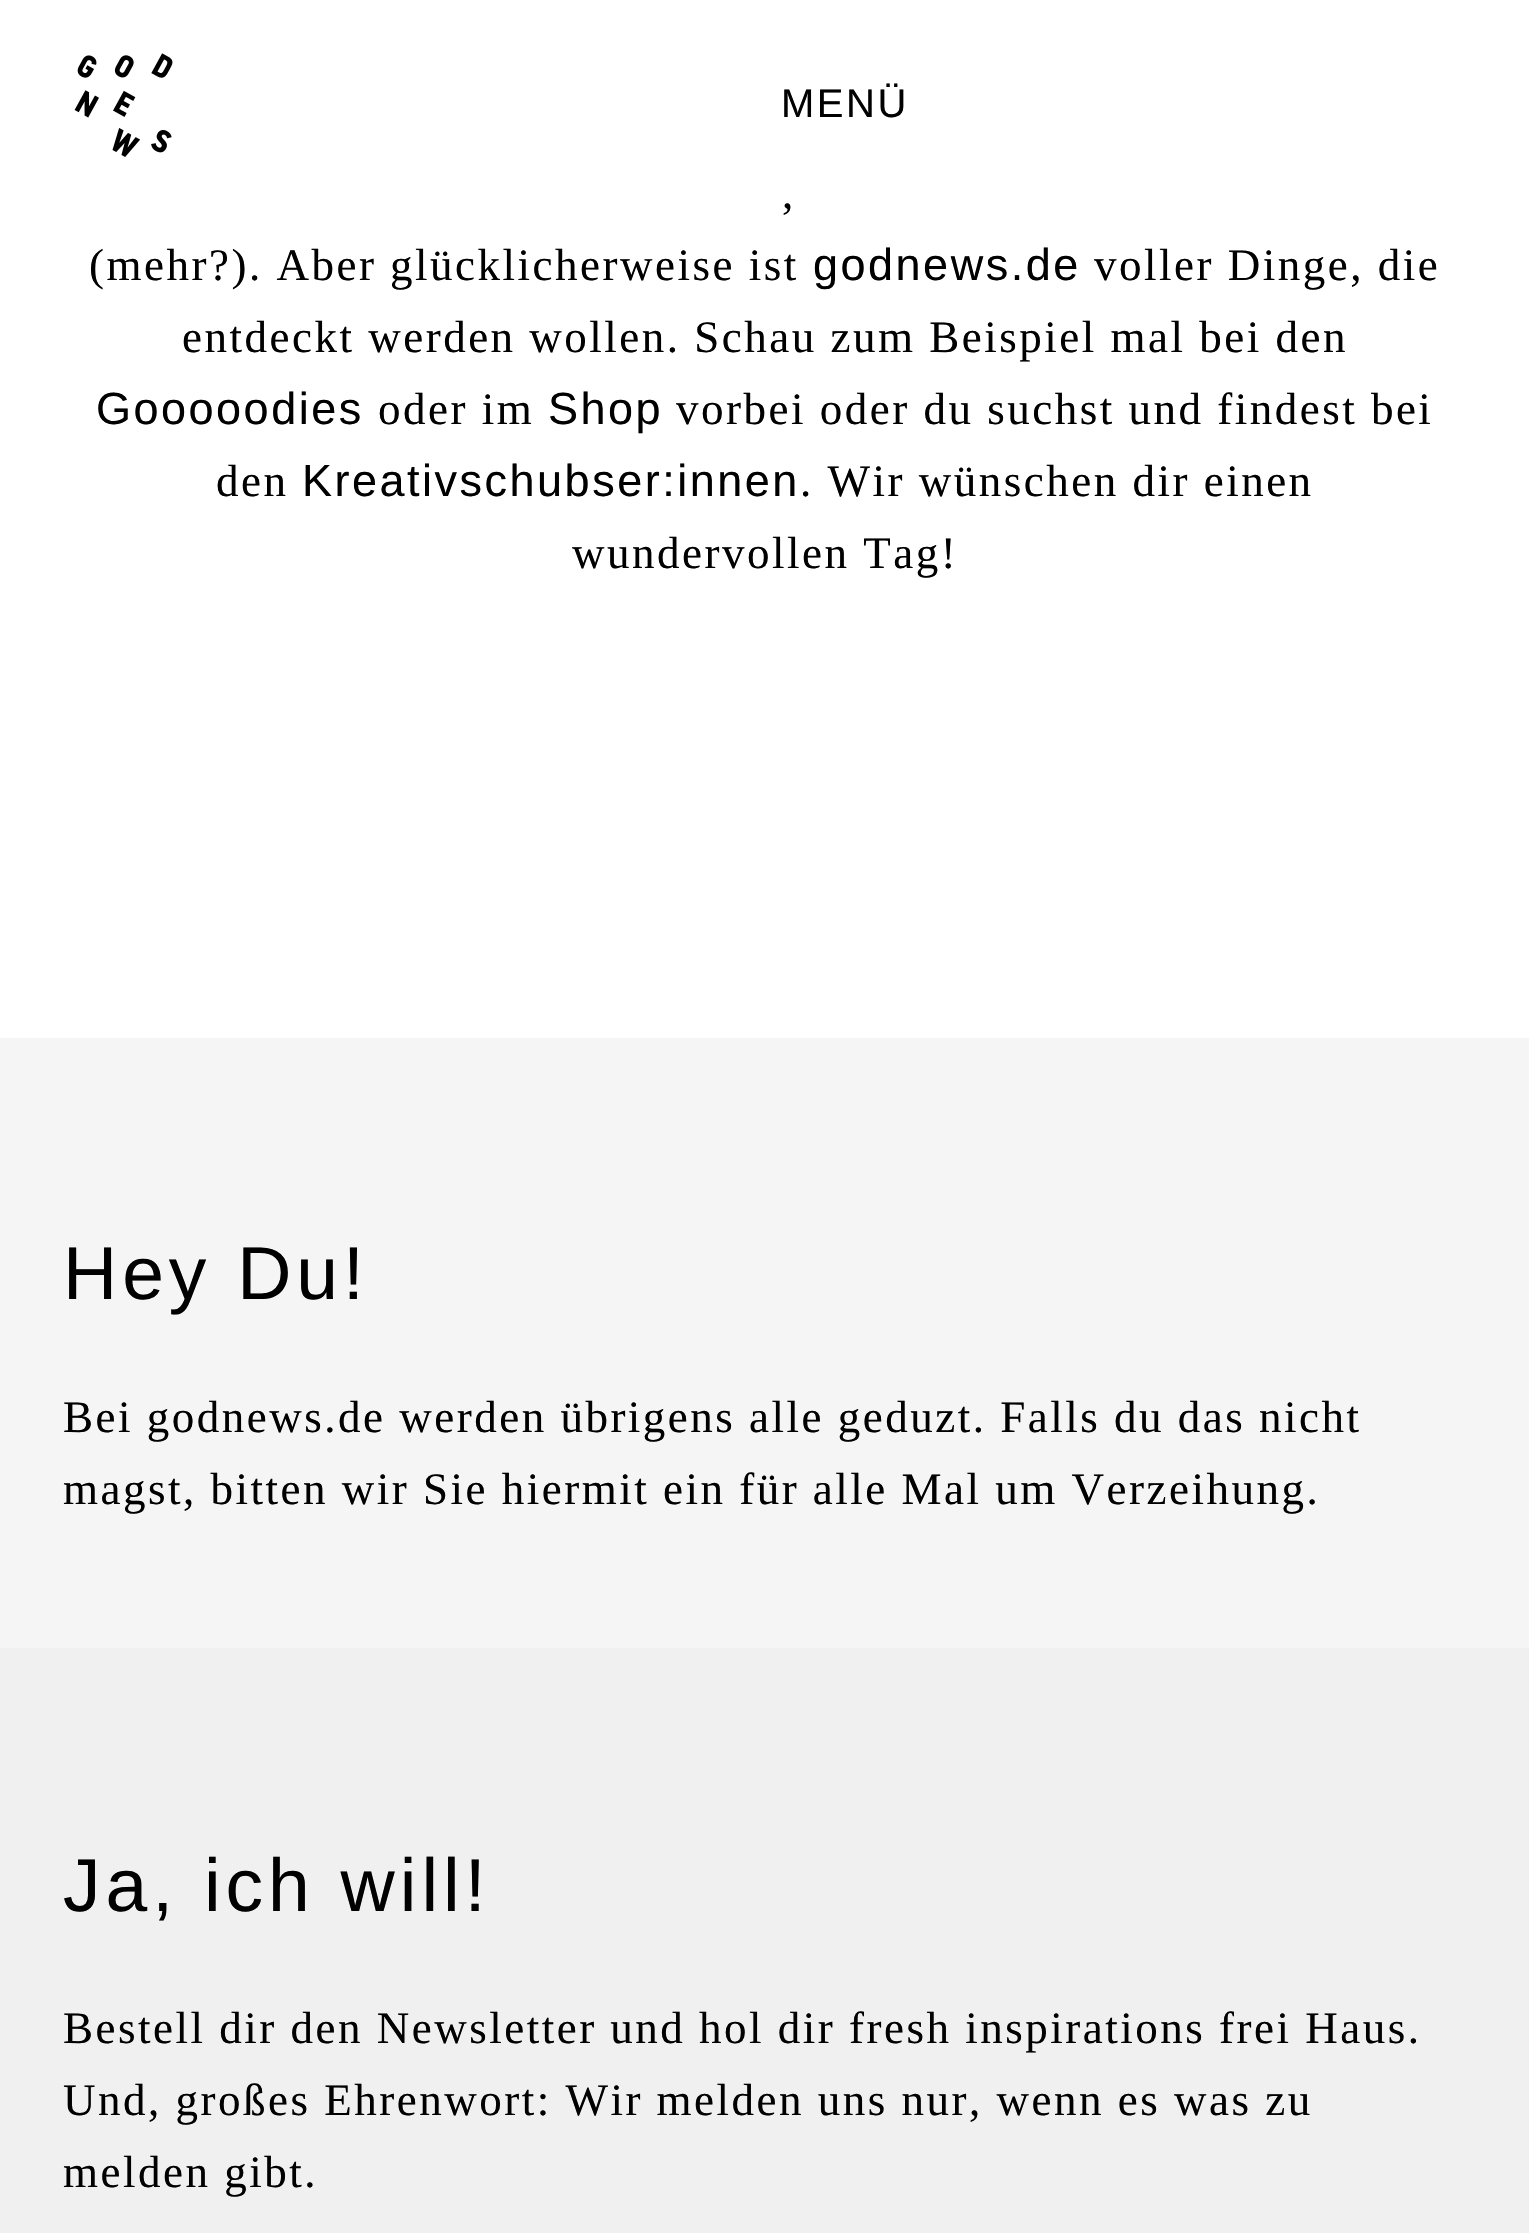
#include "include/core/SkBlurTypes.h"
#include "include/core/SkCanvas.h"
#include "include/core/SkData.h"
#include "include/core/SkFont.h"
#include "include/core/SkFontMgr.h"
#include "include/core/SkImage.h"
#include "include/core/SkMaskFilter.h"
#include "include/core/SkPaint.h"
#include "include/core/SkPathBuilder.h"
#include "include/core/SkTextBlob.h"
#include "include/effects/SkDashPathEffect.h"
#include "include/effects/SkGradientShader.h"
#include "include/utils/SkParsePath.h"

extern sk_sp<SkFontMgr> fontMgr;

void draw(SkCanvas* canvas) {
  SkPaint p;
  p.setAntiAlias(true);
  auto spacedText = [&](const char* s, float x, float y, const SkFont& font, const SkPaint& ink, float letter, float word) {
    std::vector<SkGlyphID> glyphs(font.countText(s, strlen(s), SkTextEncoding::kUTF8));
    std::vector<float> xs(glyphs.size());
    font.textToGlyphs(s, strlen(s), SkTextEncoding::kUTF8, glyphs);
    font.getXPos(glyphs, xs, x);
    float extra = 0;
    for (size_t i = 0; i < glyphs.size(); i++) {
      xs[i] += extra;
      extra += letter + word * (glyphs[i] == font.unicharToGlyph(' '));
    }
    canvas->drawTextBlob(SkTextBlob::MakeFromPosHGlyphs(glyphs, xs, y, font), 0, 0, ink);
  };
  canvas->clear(SK_ColorWHITE);
  canvas->drawImageRect(SkImages::DeferredFromEncodedData(SkData::MakeFromFileName("images/1.png")), SkRect::MakeLTRB(74, 53, 173, 157), SkSamplingOptions());
  p.setColor(SkColorSetRGB(245, 245, 245));
  canvas->drawRect(SkRect::MakeLTRB(0, 1038, 1529, 1648), p);
  p.setColor(SkColorSetRGB(240, 240, 240));
  canvas->drawRect(SkRect::MakeLTRB(0, 1648, 1529, 2233), p);
  SkFont font1(fontMgr->matchFamilyStyle("Liberation Sans", SkFontStyle::Normal()), 40);
  font1.setSubpixel(true);
  p.setColor(SK_ColorBLACK);
  spacedText("MENÜ", 781, 117, font1, p, 2.5f, 0);
  SkFont font2(fontMgr->matchFamilyStyle("Liberation Serif", SkFontStyle::Normal()), 45);
  font2.setSubpixel(true);
  spacedText(",", 782, 208, font2, p, 2.5f, 0);
  spacedText("(mehr?). Aber glücklicherweise ist", 89, 280, font2, p, 2.5f, 0);
  SkFont font3(fontMgr->matchFamilyStyle("Liberation Sans", SkFontStyle::Normal()), 45);
  font3.setSubpixel(true);
  spacedText("godnews.de", 813, 280, font3, p, 2.5f, 0);
  spacedText("voller Dinge, die", 1094, 280, font2, p, 2.5f, 0);
  spacedText("entdeckt werden wollen. Schau zum Beispiel mal bei den", 182, 352, font2, p, 2.5f, 0);
  spacedText("Gooooodies", 96, 424, font3, p, 2.5f, 0);
  spacedText("oder im", 378, 424, font2, p, 2.5f, 0);
  spacedText("Shop", 548, 424, font3, p, 2.5f, 0);
  spacedText("vorbei oder du suchst und findest bei", 676, 424, font2, p, 2.5f, 0);
  spacedText("den", 216, 496, font2, p, 2.5f, 0);
  spacedText("Kreativschubser:innen", 302, 496, font3, p, 2.5f, 0);
  spacedText(". Wir wünschen dir einen", 800, 496, font2, p, 2.5f, 0);
  spacedText("wundervollen Tag!", 572, 568, font2, p, 2.5f, 0);
  SkFont font4(fontMgr->matchFamilyStyle("Liberation Sans", SkFontStyle::Normal()), 75);
  font4.setSubpixel(true);
  spacedText("Hey Du!", 63, 1299, font4, p, 5, 0);
  spacedText("Bei godnews.de werden übrigens alle geduzt. Falls du das nicht", 63, 1432, font2, p, 2.5f, 0);
  spacedText("magst, bitten wir Sie hiermit ein für alle Mal um Verzeihung.", 63, 1504, font2, p, 2.5f, 0);
  spacedText("Ja, ich will!", 63, 1911, font4, p, 5, 0);
  spacedText("Bestell dir den Newsletter und hol dir fresh inspirations frei Haus.", 63, 2043, font2, p, 2.5f, 0);
  spacedText("Und, großes Ehrenwort: Wir melden uns nur, wenn es was zu", 63, 2115, font2, p, 2.5f, 0);
  spacedText("melden gibt.", 63, 2187, font2, p, 2.5f, 0);
}
